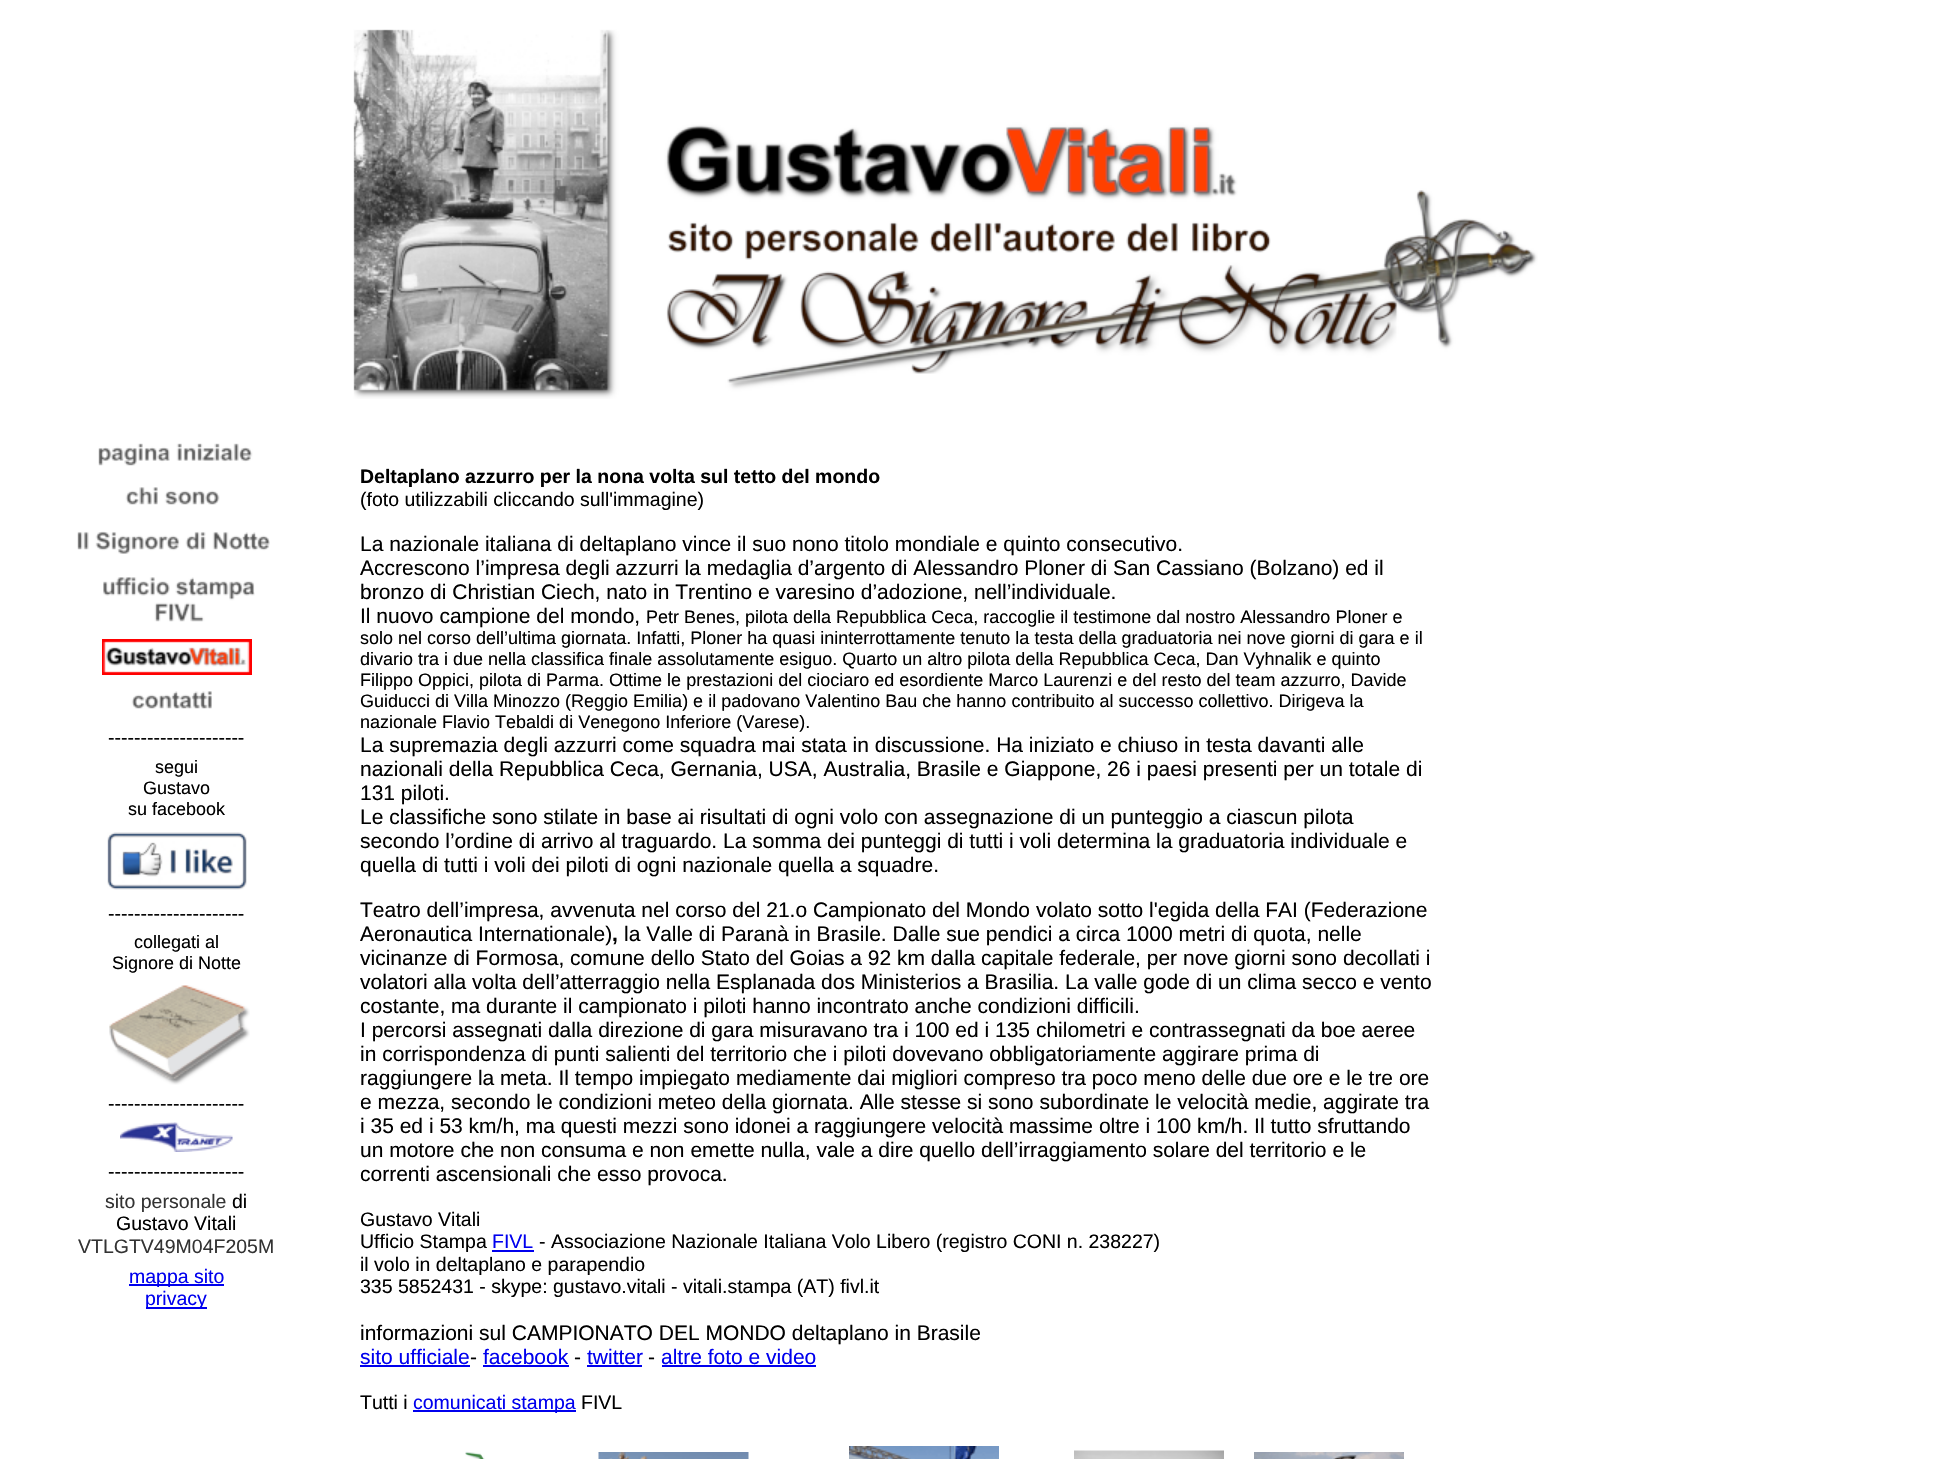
#include "include/core/SkBlurTypes.h"
#include "include/core/SkCanvas.h"
#include "include/core/SkData.h"
#include "include/core/SkFont.h"
#include "include/core/SkFontMgr.h"
#include "include/core/SkImage.h"
#include "include/core/SkMaskFilter.h"
#include "include/core/SkPaint.h"
#include "include/core/SkPathBuilder.h"
#include "include/core/SkTextBlob.h"
#include "include/effects/SkDashPathEffect.h"
#include "include/effects/SkGradientShader.h"
#include "include/utils/SkParsePath.h"

extern sk_sp<SkFontMgr> fontMgr;

void draw(SkCanvas* canvas) {
  SkPaint p;
  p.setAntiAlias(true);
  canvas->clear(SK_ColorWHITE);
  canvas->drawImageRect(SkImages::DeferredFromEncodedData(SkData::MakeFromFileName("images/1.png")), SkRect::MakeLTRB(353, 29, 1538, 399), SkSamplingOptions());
  canvas->drawImageRect(SkImages::DeferredFromEncodedData(SkData::MakeFromFileName("images/2.png")), SkRect::MakeLTRB(98, 443, 253, 466), SkSamplingOptions());
  canvas->drawImageRect(SkImages::DeferredFromEncodedData(SkData::MakeFromFileName("images/3.png")), SkRect::MakeLTRB(125, 487, 220, 505), SkSamplingOptions());
  canvas->drawImageRect(SkImages::DeferredFromEncodedData(SkData::MakeFromFileName("images/4.png")), SkRect::MakeLTRB(77, 531, 270, 554), SkSamplingOptions());
  canvas->drawImageRect(SkImages::DeferredFromEncodedData(SkData::MakeFromFileName("images/5.png")), SkRect::MakeLTRB(103, 577, 255, 622), SkSamplingOptions());
  canvas->drawImageRect(SkImages::DeferredFromEncodedData(SkData::MakeFromFileName("images/6.png")), SkRect::MakeLTRB(102, 639, 252, 675), SkSamplingOptions());
  canvas->drawImageRect(SkImages::DeferredFromEncodedData(SkData::MakeFromFileName("images/7.png")), SkRect::MakeLTRB(131, 691, 212, 709), SkSamplingOptions());
  canvas->drawImageRect(SkImages::DeferredFromEncodedData(SkData::MakeFromFileName("images/8.png")), SkRect::MakeLTRB(107, 832, 247, 890), SkSamplingOptions());
  canvas->drawImageRect(SkImages::DeferredFromEncodedData(SkData::MakeFromFileName("images/9.png")), SkRect::MakeLTRB(109, 985, 250, 1085), SkSamplingOptions());
  canvas->drawImageRect(SkImages::DeferredFromEncodedData(SkData::MakeFromFileName("images/10.png")), SkRect::MakeLTRB(120, 1122, 233, 1152), SkSamplingOptions());
  p.setColor(SkColorSetRGB(0, 0, 238));
  canvas->drawRect(SkRect::MakeLTRB(129, 1284, 224, 1286), p);
  canvas->drawRect(SkRect::MakeLTRB(146, 1307, 207, 1309), p);
  canvas->drawRect(SkRect::MakeLTRB(492, 1250, 534, 1252), p);
  canvas->drawRect(SkRect::MakeLTRB(360, 1365, 470, 1367), p);
  canvas->drawRect(SkRect::MakeLTRB(483, 1365, 569, 1367), p);
  canvas->drawRect(SkRect::MakeLTRB(587, 1365, 642, 1367), p);
  canvas->drawRect(SkRect::MakeLTRB(662, 1365, 816, 1367), p);
  canvas->drawRect(SkRect::MakeLTRB(413, 1410, 576, 1412), p);
  canvas->drawImageRect(SkImages::DeferredFromEncodedData(SkData::MakeFromFileName("images/11.png")), SkRect::MakeLTRB(465, 1451, 485, 1459), SkSamplingOptions());
  canvas->drawImageRect(SkImages::DeferredFromEncodedData(SkData::MakeFromFileName("images/12.png")), SkRect::MakeLTRB(598, 1452, 749, 1459), SkSamplingOptions());
  canvas->drawImageRect(SkImages::DeferredFromEncodedData(SkData::MakeFromFileName("images/13.png")), SkRect::MakeLTRB(849, 1446, 999, 1459), SkSamplingOptions());
  canvas->drawImageRect(SkImages::DeferredFromEncodedData(SkData::MakeFromFileName("images/14.png")), SkRect::MakeLTRB(1074, 1450, 1224, 1459), SkSamplingOptions());
  canvas->drawImageRect(SkImages::DeferredFromEncodedData(SkData::MakeFromFileName("images/15.png")), SkRect::MakeLTRB(1254, 1452, 1404, 1459), SkSamplingOptions());
  SkFont font1(fontMgr->matchFamilyStyle("Liberation Sans", SkFontStyle::Normal()), 19.5f);
  font1.setSubpixel(true);
  p.setColor(SK_ColorBLACK);
  canvas->drawString("---------------------", 108, 744, font1, p);
  SkFont font2(fontMgr->matchFamilyStyle("Liberation Sans", SkFontStyle::Normal()), 18);
  font2.setSubpixel(true);
  canvas->drawString("segui", 155, 773, font2, p);
  canvas->drawString("Gustavo", 143, 794, font2, p);
  canvas->drawString("su facebook", 128, 815, font2, p);
  canvas->drawString("---------------------", 108, 920, font1, p);
  canvas->drawString("collegati al", 134, 948, font2, p);
  canvas->drawString("Signore di Notte", 112, 969, font2, p);
  canvas->drawString("---------------------", 108, 1110, font1, p);
  canvas->drawString("---------------------", 108, 1178, font1, p);
  p.setColor(SkColorSetRGB(51, 51, 51));
  canvas->drawString("sito personale", 105, 1208, font1, p);
  p.setColor(SK_ColorBLACK);
  canvas->drawString("di", 232, 1208, font1, p);
  canvas->drawString("Gustavo Vitali", 116, 1230, font1, p);
  p.setColor(SkColorSetRGB(51, 51, 51));
  canvas->drawString("VTLGTV49M04F205M", 78, 1253, font1, p);
  p.setColor(SkColorSetRGB(0, 0, 238));
  canvas->drawString("mappa sito", 129, 1283, font1, p);
  canvas->drawString("privacy", 145, 1305, font1, p);
  SkFont font3(fontMgr->matchFamilyStyle("Liberation Sans", SkFontStyle::Bold()), 19.5f);
  font3.setSubpixel(true);
  p.setColor(SK_ColorBLACK);
  canvas->drawString("Deltaplano azzurro per la nona volta sul tetto del mondo", 360, 483, font3, p);
  canvas->drawString("(foto utilizzabili cliccando sull'immagine)", 360, 506, font1, p);
  SkFont font4(fontMgr->matchFamilyStyle("Liberation Sans", SkFontStyle::Normal()), 21);
  font4.setSubpixel(true);
  canvas->drawString("La nazionale italiana di deltaplano vince il suo nono titolo mondiale e quinto consecutivo.", 360, 551, font4, p);
  canvas->drawString("Accrescono l’impresa degli azzurri la medaglia d’argento di Alessandro Ploner di San Cassiano (Bolzano) ed il", 360, 575, font4, p);
  canvas->drawString("bronzo di Christian Ciech, nato in Trentino e varesino d’adozione, nell’individuale.", 360, 599, font4, p);
  canvas->drawString("Il nuovo campione del mondo,", 360, 623, font4, p);
  canvas->drawString("Petr Benes, pilota della Repubblica Ceca, raccoglie il testimone dal nostro Alessandro Ploner e", 646, 623, font2, p);
  canvas->drawString("solo nel corso dell’ultima giornata. Infatti, Ploner ha quasi ininterrottamente tenuto la testa della graduatoria nei nove giorni di gara e il", 360, 644, font2, p);
  canvas->drawString("divario tra i due nella classifica finale assolutamente esiguo. Quarto un altro pilota della Repubblica Ceca, Dan Vyhnalik e quinto", 360, 665, font2, p);
  canvas->drawString("Filippo Oppici, pilota di Parma. Ottime le prestazioni del ciociaro ed esordiente Marco Laurenzi e del resto del team azzurro, Davide", 360, 686, font2, p);
  canvas->drawString("Guiducci di Villa Minozzo (Reggio Emilia) e il padovano Valentino Bau che hanno contribuito al successo collettivo. Dirigeva la", 360, 707, font2, p);
  canvas->drawString("nazionale Flavio Tebaldi di Venegono Inferiore (Varese).", 360, 728, font2, p);
  canvas->drawString("La supremazia degli azzurri come squadra mai stata in discussione. Ha iniziato e chiuso in testa davanti alle", 360, 752, font4, p);
  canvas->drawString("nazionali della Repubblica Ceca, Gernania, USA, Australia, Brasile e Giappone, 26 i paesi presenti per un totale di", 360, 776, font4, p);
  canvas->drawString("131 piloti.", 360, 800, font4, p);
  canvas->drawString("Le classifiche sono stilate in base ai risultati di ogni volo con assegnazione di un punteggio a ciascun pilota", 360, 824, font4, p);
  canvas->drawString("secondo l’ordine di arrivo al traguardo. La somma dei punteggi di tutti i voli determina la graduatoria individuale e", 360, 848, font4, p);
  canvas->drawString("quella di tutti i voli dei piloti di ogni nazionale quella a squadre.", 360, 872, font4, p);
  canvas->drawString("Teatro dell’impresa, avvenuta nel corso del 21.o Campionato del Mondo volato sotto l'egida della FAI (Federazione", 360, 917, font4, p);
  canvas->drawString("Aeronautica Internationale)", 360, 941, font4, p);
  SkFont font5(fontMgr->matchFamilyStyle("Liberation Sans", SkFontStyle::Bold()), 21);
  font5.setSubpixel(true);
  canvas->drawString(",", 612, 941, font5, p);
  canvas->drawString("la Valle di Paranà in Brasile. Dalle sue pendici a circa 1000 metri di quota, nelle", 624, 941, font4, p);
  canvas->drawString("vicinanze di Formosa, comune dello Stato del Goias a 92 km dalla capitale federale, per nove giorni sono decollati i", 360, 965, font4, p);
  canvas->drawString("volatori alla volta dell’atterraggio nella Esplanada dos Ministerios a Brasilia. La valle gode di un clima secco e vento", 360, 989, font4, p);
  canvas->drawString("costante, ma durante il campionato i piloti hanno incontrato anche condizioni difficili.", 360, 1013, font4, p);
  canvas->drawString("I percorsi assegnati dalla direzione di gara misuravano tra i 100 ed i 135 chilometri e contrassegnati da boe aeree", 360, 1037, font4, p);
  canvas->drawString("in corrispondenza di punti salienti del territorio che i piloti dovevano obbligatoriamente aggirare prima di", 360, 1061, font4, p);
  canvas->drawString("raggiungere la meta. Il tempo impiegato mediamente dai migliori compreso tra poco meno delle due ore e le tre ore", 360, 1085, font4, p);
  canvas->drawString("e mezza, secondo le condizioni meteo della giornata. Alle stesse si sono subordinate le velocità medie, aggirate tra", 360, 1109, font4, p);
  canvas->drawString("i 35 ed i 53 km/h, ma questi mezzi sono idonei a raggiungere velocità massime oltre i 100 km/h. Il tutto sfruttando", 360, 1133, font4, p);
  canvas->drawString("un motore che non consuma e non emette nulla, vale a dire quello dell’irraggiamento solare del territorio e le", 360, 1157, font4, p);
  canvas->drawString("correnti ascensionali che esso provoca.", 360, 1181, font4, p);
  canvas->drawString("Gustavo Vitali", 360, 1226, font1, p);
  canvas->drawString("Ufficio Stampa", 360, 1248, font1, p);
  p.setColor(SkColorSetRGB(0, 0, 238));
  canvas->drawString("FIVL", 492, 1248, font1, p);
  p.setColor(SK_ColorBLACK);
  canvas->drawString("- Associazione Nazionale Italiana Volo Libero (registro CONI n. 238227)", 539, 1248, font1, p);
  canvas->drawString("il volo in deltaplano e parapendio", 360, 1271, font1, p);
  canvas->drawString("335 5852431 - skype: gustavo.vitali - vitali.stampa (AT) fivl.it", 360, 1293, font1, p);
  canvas->drawString("informazioni sul CAMPIONATO DEL MONDO deltaplano in Brasile", 360, 1340, font4, p);
  p.setColor(SkColorSetRGB(0, 0, 238));
  canvas->drawString("sito ufficiale", 360, 1364, font4, p);
  p.setColor(SK_ColorBLACK);
  canvas->drawString("-", 470, 1364, font4, p);
  p.setColor(SkColorSetRGB(0, 0, 238));
  canvas->drawString("facebook", 483, 1364, font4, p);
  p.setColor(SK_ColorBLACK);
  canvas->drawString("-", 574, 1364, font4, p);
  p.setColor(SkColorSetRGB(0, 0, 238));
  canvas->drawString("twitter", 587, 1364, font4, p);
  p.setColor(SK_ColorBLACK);
  canvas->drawString("-", 648, 1364, font4, p);
  p.setColor(SkColorSetRGB(0, 0, 238));
  canvas->drawString("altre foto e video", 661, 1364, font4, p);
  p.setColor(SK_ColorBLACK);
  canvas->drawString("Tutti i", 360, 1409, font1, p);
  p.setColor(SkColorSetRGB(0, 0, 238));
  canvas->drawString("comunicati stampa", 413, 1409, font1, p);
  p.setColor(SK_ColorBLACK);
  canvas->drawString("FIVL", 581, 1409, font1, p);
}
